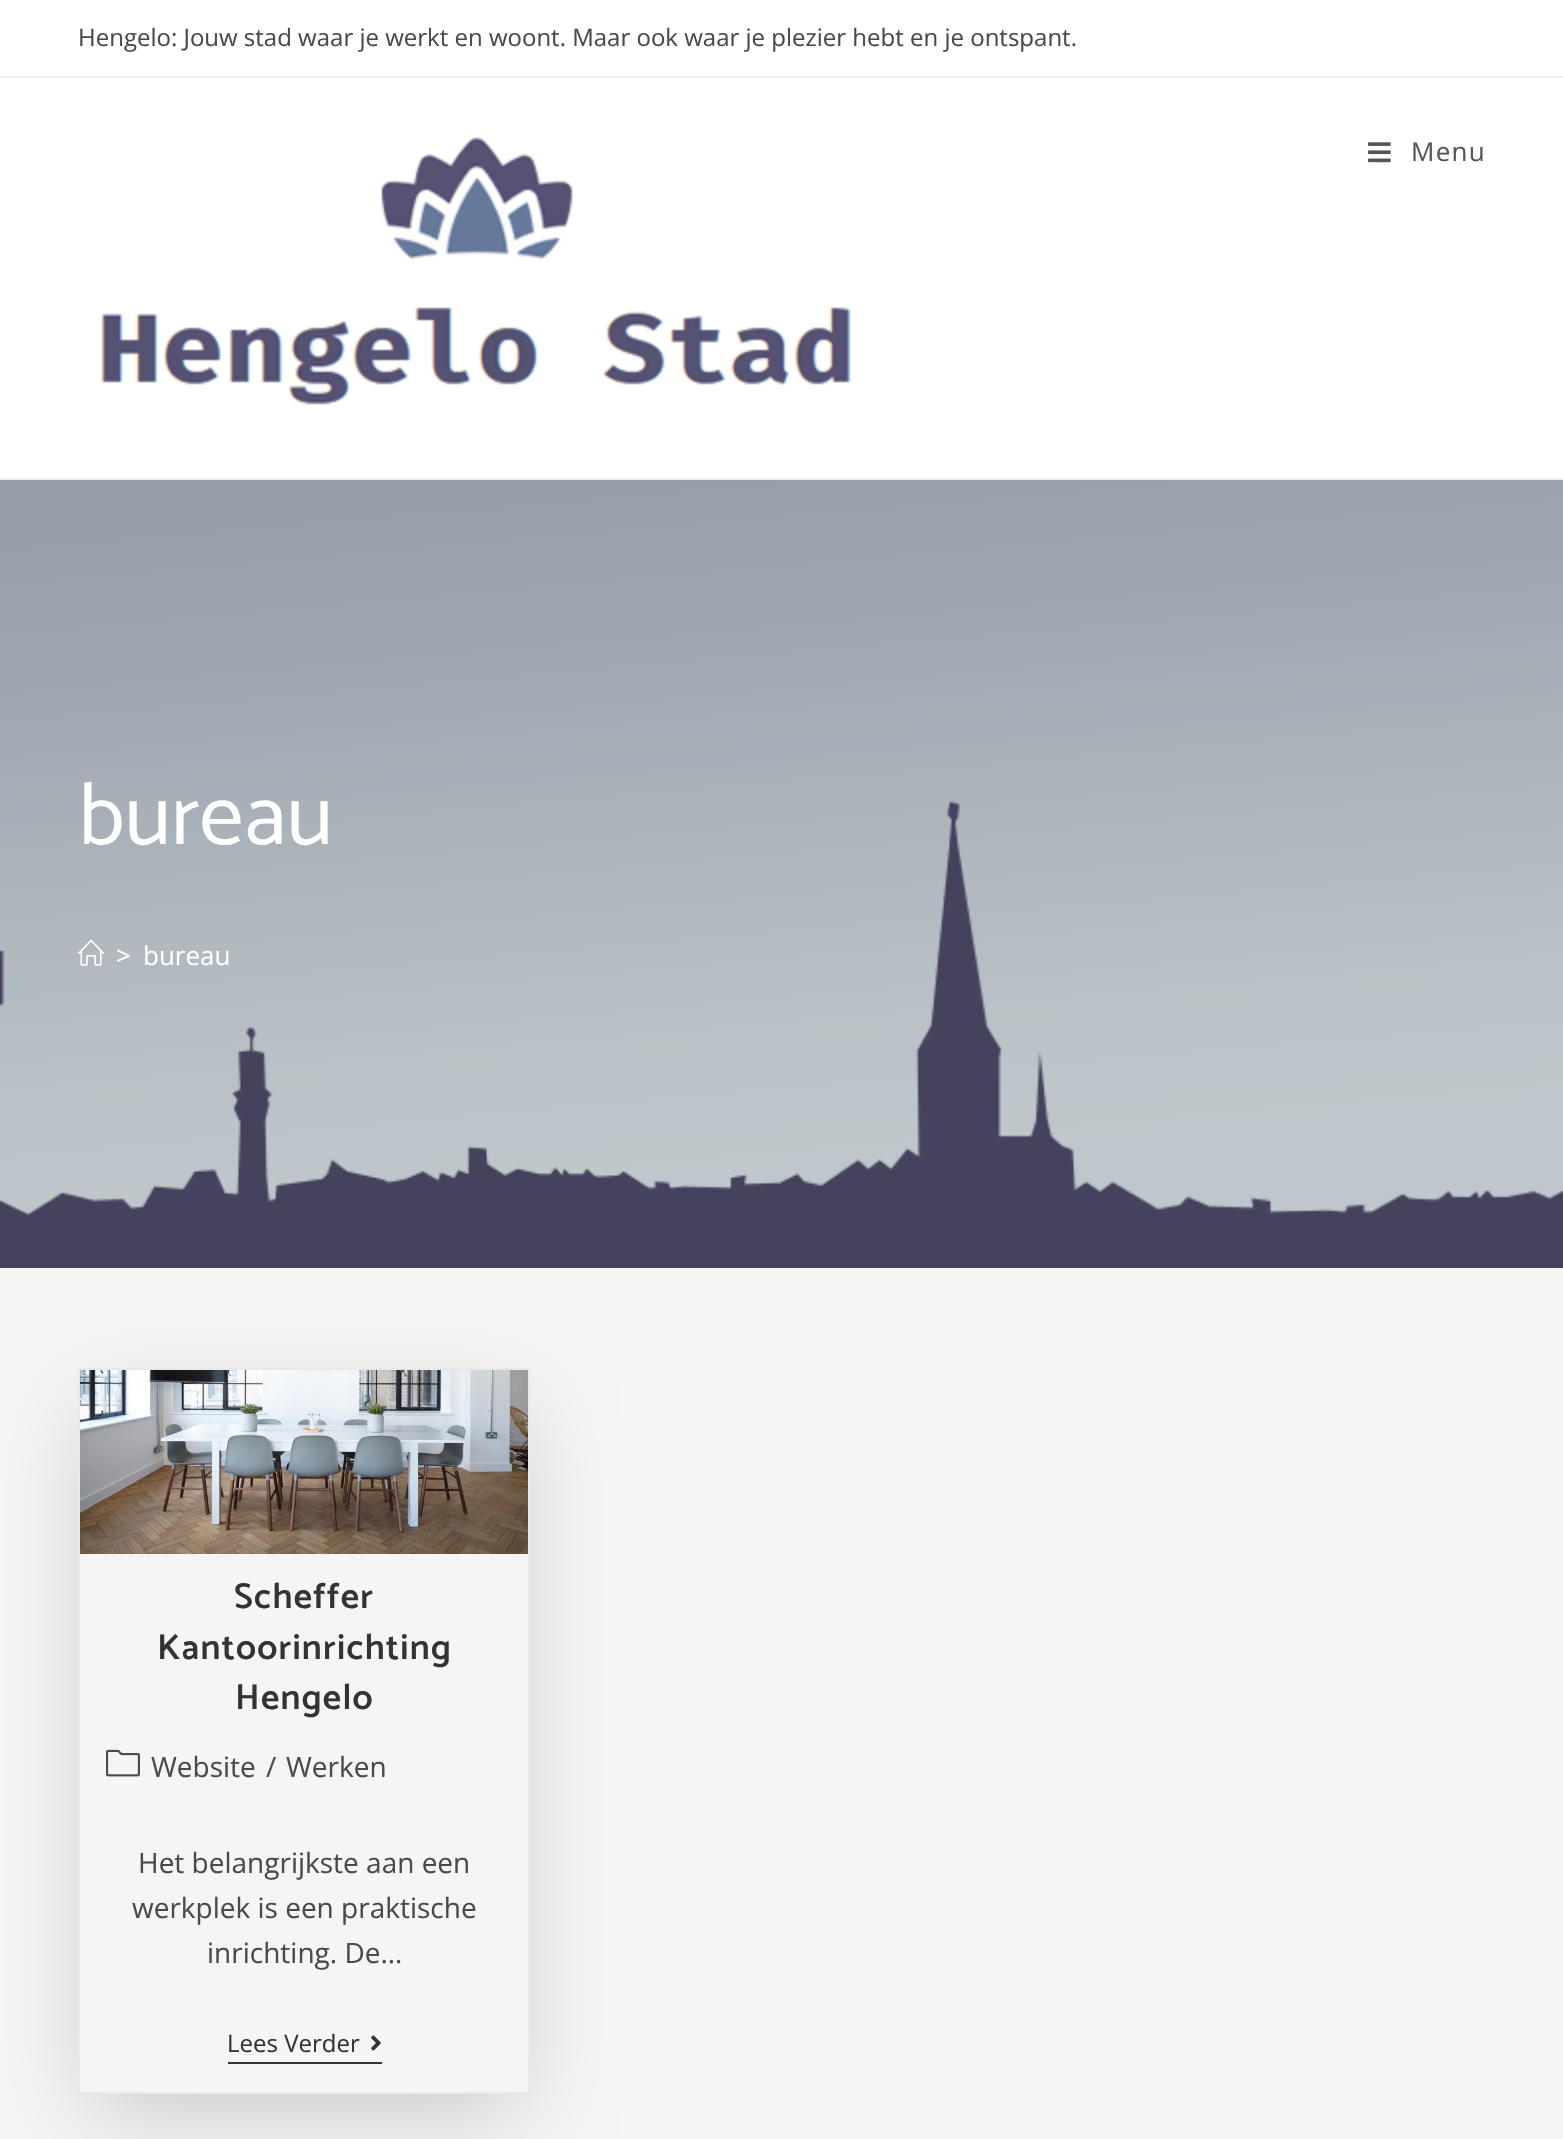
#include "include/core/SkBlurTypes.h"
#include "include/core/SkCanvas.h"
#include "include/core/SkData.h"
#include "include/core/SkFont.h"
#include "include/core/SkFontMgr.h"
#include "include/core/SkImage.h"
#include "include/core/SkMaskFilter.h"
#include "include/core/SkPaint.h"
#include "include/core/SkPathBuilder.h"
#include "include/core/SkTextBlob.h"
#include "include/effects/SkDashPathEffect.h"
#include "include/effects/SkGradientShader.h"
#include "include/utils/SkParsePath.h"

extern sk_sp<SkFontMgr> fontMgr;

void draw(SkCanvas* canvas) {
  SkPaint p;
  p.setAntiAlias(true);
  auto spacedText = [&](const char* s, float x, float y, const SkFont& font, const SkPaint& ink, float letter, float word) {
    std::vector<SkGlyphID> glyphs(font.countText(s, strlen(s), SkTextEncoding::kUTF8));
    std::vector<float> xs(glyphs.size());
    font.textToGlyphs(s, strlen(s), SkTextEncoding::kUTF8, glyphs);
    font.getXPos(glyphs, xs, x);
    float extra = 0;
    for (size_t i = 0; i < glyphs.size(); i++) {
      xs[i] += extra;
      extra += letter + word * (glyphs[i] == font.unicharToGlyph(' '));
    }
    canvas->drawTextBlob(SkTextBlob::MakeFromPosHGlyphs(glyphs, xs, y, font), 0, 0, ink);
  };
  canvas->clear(SkColorSetRGB(245, 245, 245));
  p.setColor(SK_ColorWHITE);
  canvas->drawRect(SkRect::MakeLTRB(0, 0, 1563, 76), p);
  p.setColor(SkColorSetRGB(241, 241, 241));
  canvas->drawRect(SkRect::MakeLTRB(0, 76, 1563, 78), p);
  p.setColor(SK_ColorWHITE);
  canvas->drawRect(SkRect::MakeLTRB(0, 78, 1563, 478), p);
  p.setColor(SkColorSetRGB(241, 241, 241));
  canvas->drawRect(SkRect::MakeLTRB(0, 478, 1563, 480), p);
  canvas->drawImageRect(SkImages::DeferredFromEncodedData(SkData::MakeFromFileName("images/1.png")), SkRect::MakeLTRB(101, 137, 851, 405), SkSamplingOptions());
  canvas->drawImageRect(SkImages::DeferredFromEncodedData(SkData::MakeFromFileName("images/2.png")), SkRect::MakeLTRB(1368, 142, 1391, 163), SkSamplingOptions());
  canvas->drawImageRect(SkImages::DeferredFromEncodedData(SkData::MakeFromFileName("images/3.png")), SkRect::MakeLTRB(0, 480, 1563, 1268), SkSamplingOptions());
  canvas->drawImageRect(SkImages::DeferredFromEncodedData(SkData::MakeFromFileName("images/4.png")), SkRect::MakeLTRB(78, 939, 104, 966), SkSamplingOptions());
  canvas->save();
  canvas->clipPath(SkPathBuilder(SkPathFillType::kEvenOdd).moveTo(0, 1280).lineTo(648, 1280).lineTo(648, 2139).lineTo(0, 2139).close().moveTo(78, 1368).lineTo(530, 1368).lineTo(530, 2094).lineTo(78, 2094).close().detach(), true);
  p.setColor(SkColorSetARGB(51, 0, 0, 0));
  p.setMaskFilter(SkMaskFilter::MakeBlur(kNormal_SkBlurStyle, 45));
  canvas->drawRect(SkRect::MakeLTRB(96, 1416, 512, 2106), p);
  p.setMaskFilter(nullptr);
  canvas->restore();
  p.setStyle(SkPaint::kStroke_Style);
  p.setStrokeWidth(2);
  p.setColor(SkColorSetRGB(233, 233, 233));
  canvas->drawRect(SkRect::MakeLTRB(79, 1369, 529, 2093), p);
  canvas->drawImageRect(SkImages::DeferredFromEncodedData(SkData::MakeFromFileName("images/5.png")), SkRect::MakeLTRB(80, 1370, 528, 1554), SkSamplingOptions());
  canvas->drawImageRect(SkImages::DeferredFromEncodedData(SkData::MakeFromFileName("images/6.png")), SkRect::MakeLTRB(106, 1749, 140, 1777), SkSamplingOptions());
  p.setStyle(SkPaint::kFill_Style);
  p.setColor(SkColorSetRGB(51, 51, 51));
  canvas->drawRect(SkRect::MakeLTRB(228, 2062, 382, 2064), p);
  canvas->drawImageRect(SkImages::DeferredFromEncodedData(SkData::MakeFromFileName("images/7.png")), SkRect::MakeLTRB(371, 2035, 381, 2051), SkSamplingOptions());
  SkFont font1(fontMgr->matchFamilyStyle("Open Sans", SkFontStyle::Normal()), 24);
  font1.setSubpixel(true);
  p.setColor(SkColorSetRGB(74, 74, 74));
  canvas->drawString("Hengelo: Jouw stad waar je werkt en woont. Maar ook waar je plezier hebt en je ontspant.", 78, 46, font1, p);
  SkFont font2(fontMgr->matchFamilyStyle("Open Sans", SkFontStyle::Normal()), 26);
  font2.setSubpixel(true);
  p.setColor(SkColorSetRGB(85, 85, 85));
  spacedText("Menu", 1411, 161, font2, p, 1.25f, 0);
  SkFont font3(fontMgr->matchFamilyStyle("Catamaran", SkFontStyle::Normal()), 88);
  font3.setSubpixel(true);
  p.setColor(SK_ColorWHITE);
  canvas->drawString("bureau", 78, 844, font3, p);
  canvas->drawString(">", 116, 965, font2, p);
  canvas->drawString("bureau", 143, 965, font2, p);
  SkFont font4(fontMgr->matchFamilyStyle("Catamaran", SkFontStyle(600, SkFontStyle::kNormal_Width, SkFontStyle::kUpright_Slant)), 36);
  font4.setSubpixel(true);
  p.setColor(SkColorSetRGB(51, 51, 51));
  spacedText("Scheffer", 234, 1608, font4, p, 1.25f, 0);
  spacedText("Kantoorinrichting", 157, 1659, font4, p, 1.25f, 0);
  spacedText("Hengelo", 235, 1709, font4, p, 1.25f, 0);
  SkFont font5(fontMgr->matchFamilyStyle("Open Sans", SkFontStyle::Normal()), 28);
  font5.setSubpixel(true);
  p.setColor(SkColorSetRGB(74, 74, 74));
  canvas->drawString("Website", 151, 1777, font5, p);
  canvas->drawString("/", 266, 1777, font5, p);
  canvas->drawString("Werken", 286, 1777, font5, p);
  canvas->drawString("Het belangrijkste aan een", 138, 1873, font5, p);
  canvas->drawString("werkplek is een praktische", 132, 1918, font5, p);
  canvas->drawString("inrichting. De…", 207, 1963, font5, p);
  p.setColor(SkColorSetRGB(51, 51, 51));
  canvas->drawString("Lees Verder", 227, 2052, font1, p);
}
